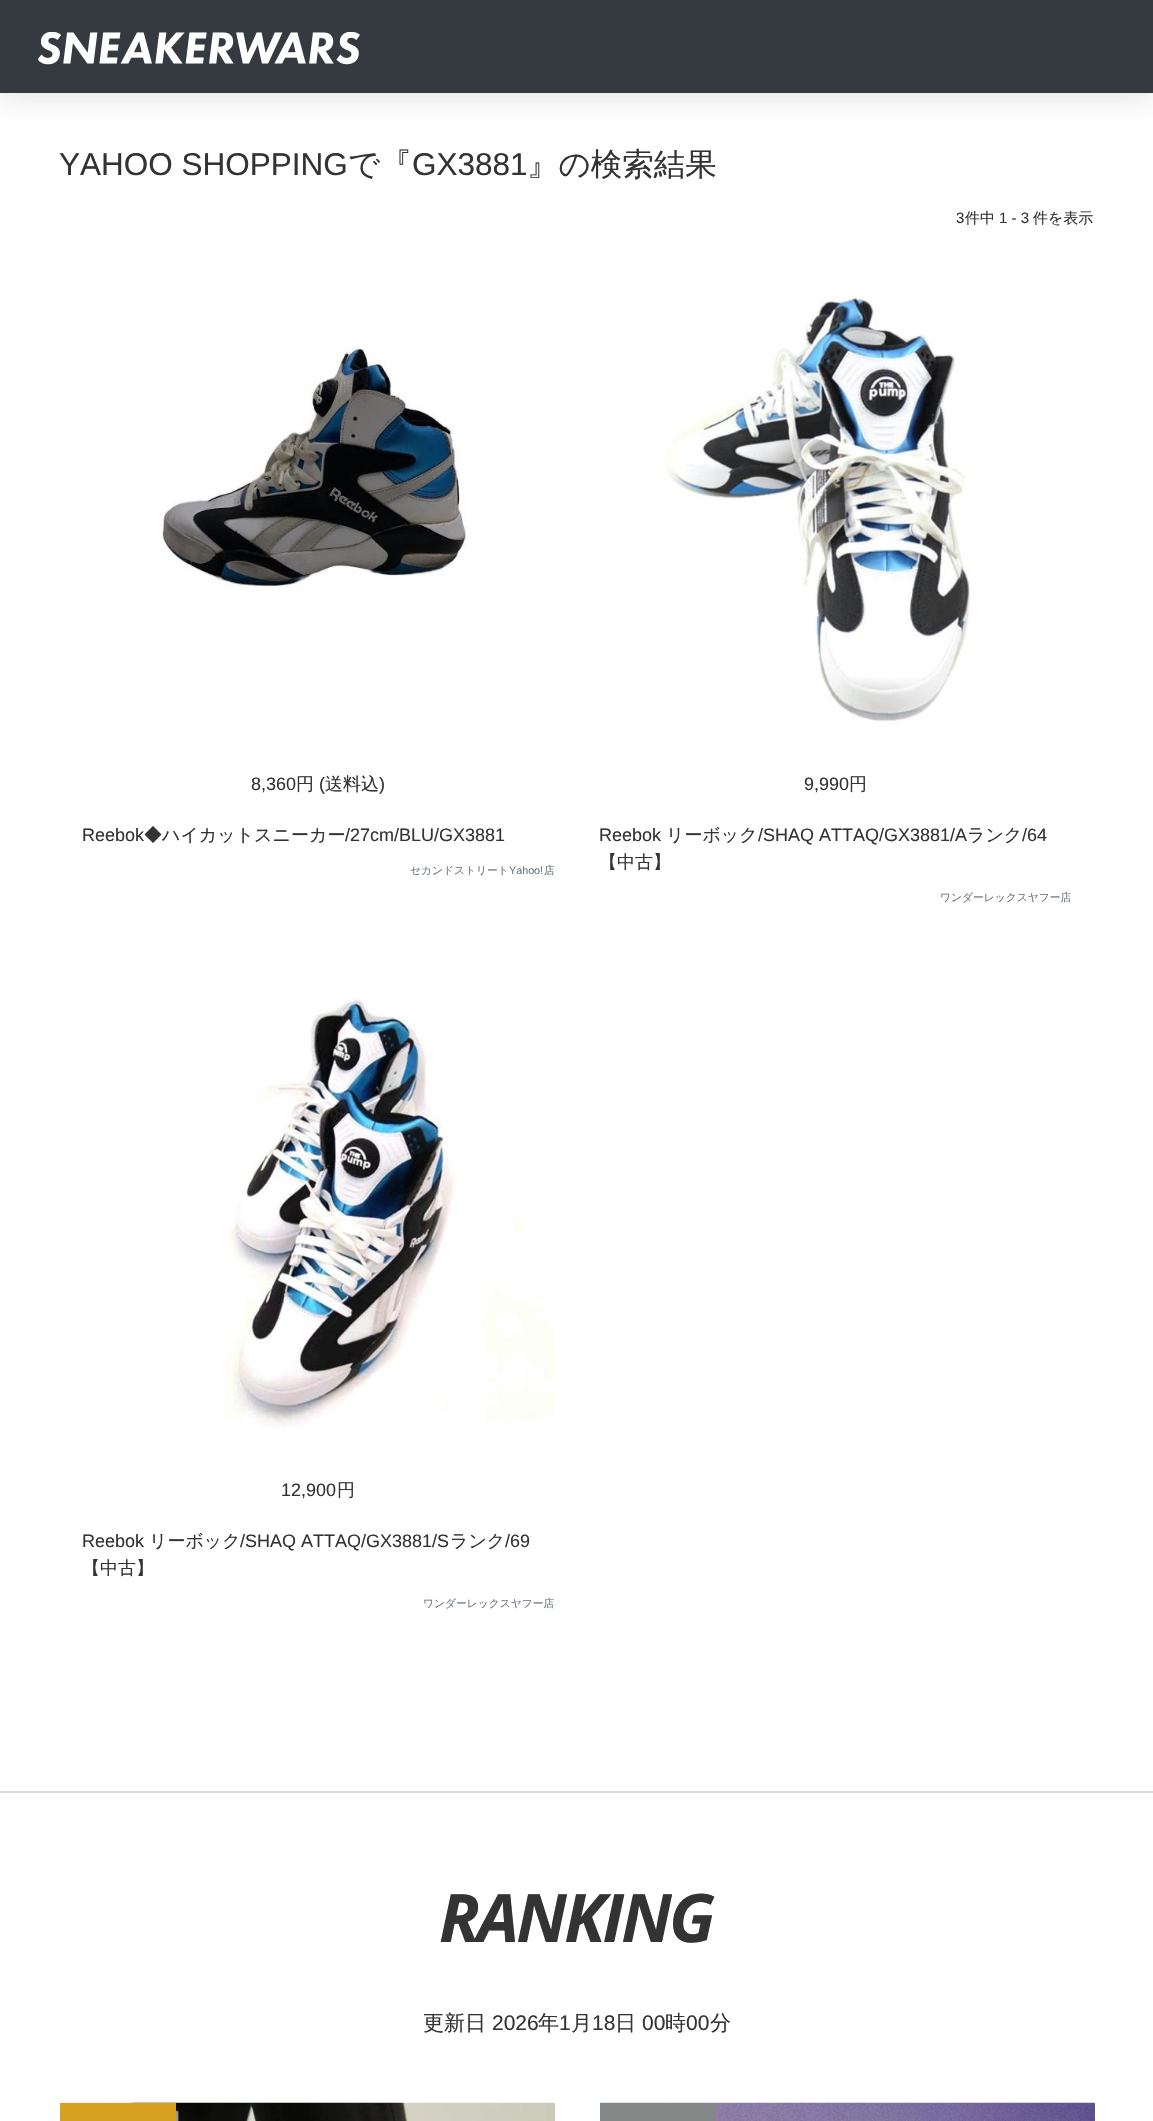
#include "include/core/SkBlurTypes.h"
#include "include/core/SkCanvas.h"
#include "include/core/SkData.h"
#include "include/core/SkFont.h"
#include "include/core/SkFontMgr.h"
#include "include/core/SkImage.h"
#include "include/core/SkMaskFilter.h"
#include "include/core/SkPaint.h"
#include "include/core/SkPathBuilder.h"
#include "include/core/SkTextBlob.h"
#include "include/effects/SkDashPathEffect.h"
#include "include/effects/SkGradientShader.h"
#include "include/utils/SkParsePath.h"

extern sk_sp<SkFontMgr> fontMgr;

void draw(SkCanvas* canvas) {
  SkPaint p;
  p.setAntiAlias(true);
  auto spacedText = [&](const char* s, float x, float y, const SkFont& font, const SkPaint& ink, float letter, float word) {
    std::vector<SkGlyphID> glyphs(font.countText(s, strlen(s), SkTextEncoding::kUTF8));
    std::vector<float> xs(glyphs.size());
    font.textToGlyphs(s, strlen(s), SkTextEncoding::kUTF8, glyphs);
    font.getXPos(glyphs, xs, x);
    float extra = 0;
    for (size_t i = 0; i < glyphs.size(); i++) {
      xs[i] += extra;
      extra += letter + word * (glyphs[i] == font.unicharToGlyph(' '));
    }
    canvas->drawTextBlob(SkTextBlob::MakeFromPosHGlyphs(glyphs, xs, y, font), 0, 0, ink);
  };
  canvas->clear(SK_ColorWHITE);
  p.setColor(SkColorSetARGB(38, 0, 0, 0));
  p.setMaskFilter(SkMaskFilter::MakeBlur(kNormal_SkBlurStyle, 15));
  canvas->drawRect(SkRect::MakeLTRB(0, 0, 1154, 93), p);
  p.setMaskFilter(nullptr);
  p.setColor(SkColorSetRGB(52, 58, 64));
  canvas->drawRect(SkRect::MakeLTRB(0, 0, 1153, 93), p);
  canvas->drawImageRect(SkImages::DeferredFromEncodedData(SkData::MakeFromFileName("images/1.png")), SkRect::MakeLTRB(38, 32, 360, 65), SkSamplingOptions());
  canvas->drawImageRect(SkImages::DeferredFromEncodedData(SkData::MakeFromFileName("images/2.png")), SkRect::MakeLTRB(158, 348, 467, 587), SkSamplingOptions());
  canvas->drawImageRect(SkImages::DeferredFromEncodedData(SkData::MakeFromFileName("images/3.png")), SkRect::MakeLTRB(664, 297, 971, 726), SkSamplingOptions());
  canvas->drawImageRect(SkImages::DeferredFromEncodedData(SkData::MakeFromFileName("images/4.png")), SkRect::MakeLTRB(223, 999, 555, 1428), SkSamplingOptions());
  p.setColor(SkColorSetRGB(221, 221, 221));
  canvas->drawRect(SkRect::MakeLTRB(0, 1791, 1153, 1793), p);
  canvas->drawImageRect(SkImages::DeferredFromEncodedData(SkData::MakeFromFileName("images/5.png")), SkRect::MakeLTRB(60, 2102, 555, 2121), SkSamplingOptions());
  p.setColor(SkColorSetRGB(214, 161, 30));
  canvas->drawRect(SkRect::MakeLTRB(60, 2103, 176, 2121), p);
  canvas->drawImageRect(SkImages::DeferredFromEncodedData(SkData::MakeFromFileName("images/6.png")), SkRect::MakeLTRB(600, 2102, 1095, 2121), SkSamplingOptions());
  p.setColor(SkColorSetRGB(131, 135, 134));
  canvas->drawRect(SkRect::MakeLTRB(600, 2103, 716, 2121), p);
  SkFont font1(fontMgr->matchFamilyStyle("Liberation Sans", SkFontStyle::Normal()), 31.5f);
  font1.setSubpixel(true);
  p.setColor(SkColorSetRGB(51, 51, 51));
  canvas->drawString("YAHOO SHOPPING", 59, 175, font1, p);
  SkFont font2(fontMgr->matchFamilyStyle("WenQuanYi Zen Hei", SkFontStyle(500, SkFontStyle::kNormal_Width, SkFontStyle::kUpright_Slant)), 31.5f);
  font2.setSubpixel(true);
  canvas->drawString("で『", 348, 175, font2, p);
  canvas->drawString("GX3881", 412, 175, font1, p);
  canvas->drawString("』の検索結果", 527, 175, font2, p);
  SkFont font3(fontMgr->matchFamilyStyle("Liberation Sans", SkFontStyle::Normal()), 15);
  font3.setSubpixel(true);
  canvas->drawString("3", 956, 223, font3, p);
  SkFont font4(fontMgr->matchFamilyStyle("WenQuanYi Zen Hei", SkFontStyle(500, SkFontStyle::kNormal_Width, SkFontStyle::kUpright_Slant)), 15);
  font4.setSubpixel(true);
  canvas->drawString("件中", 965, 223, font4, p);
  canvas->drawString("1 - 3", 999, 223, font3, p);
  canvas->drawString("件を表示", 1033, 223, font4, p);
  SkFont font5(fontMgr->matchFamilyStyle("Liberation Sans", SkFontStyle::Normal()), 18);
  font5.setSubpixel(true);
  canvas->drawString("8,360", 251, 790, font5, p);
  SkFont font6(fontMgr->matchFamilyStyle("WenQuanYi Zen Hei", SkFontStyle(500, SkFontStyle::kNormal_Width, SkFontStyle::kUpright_Slant)), 18);
  font6.setSubpixel(true);
  canvas->drawString("円", 296, 790, font6, p);
  canvas->drawString("(", 319, 790, font5, p);
  canvas->drawString("送料込", 325, 790, font6, p);
  canvas->drawString(")", 379, 790, font5, p);
  canvas->drawString("Reebok", 82, 841, font5, p);
  canvas->drawString("◆ハイカットスニーカー", 144, 841, font6, p);
  canvas->drawString("/27cm/BLU/GX3881", 345, 841, font5, p);
  SkFont font7(fontMgr->matchFamilyStyle("WenQuanYi Zen Hei", SkFontStyle(500, SkFontStyle::kNormal_Width, SkFontStyle::kUpright_Slant)), 10.75f);
  font7.setSubpixel(true);
  p.setColor(SkColorSetRGB(108, 117, 125));
  canvas->drawString("セカンドストリート", 410, 874, font7, p);
  SkFont font8(fontMgr->matchFamilyStyle("Liberation Sans", SkFontStyle::Normal()), 10.75f);
  font8.setSubpixel(true);
  canvas->drawString("Yahoo!", 509, 874, font8, p);
  canvas->drawString("店", 544, 874, font7, p);
  p.setColor(SkColorSetRGB(51, 51, 51));
  canvas->drawString("9,990", 804, 790, font5, p);
  canvas->drawString("円", 849, 790, font6, p);
  canvas->drawString("Reebok", 599, 841, font5, p);
  canvas->drawString("リーボック", 666, 841, font6, p);
  canvas->drawString("/SHAQ ATTAQ/GX3881/A", 758, 841, font5, p);
  canvas->drawString("ランク", 967, 841, font6, p);
  canvas->drawString("/64", 1022, 841, font5, p);
  canvas->drawString("【中古】", 599, 868, font6, p);
  p.setColor(SkColorSetRGB(108, 117, 125));
  canvas->drawString("ワンダーレックスヤフー店", 940, 901, font7, p);
  p.setColor(SkColorSetRGB(51, 51, 51));
  canvas->drawString("12,900", 281, 1496, font5, p);
  canvas->drawString("円", 337, 1496, font6, p);
  canvas->drawString("Reebok", 82, 1547, font5, p);
  canvas->drawString("リーボック", 149, 1547, font6, p);
  canvas->drawString("/SHAQ ATTAQ/GX3881/S", 240, 1547, font5, p);
  canvas->drawString("ランク", 450, 1547, font6, p);
  canvas->drawString("/69", 505, 1547, font5, p);
  canvas->drawString("【中古】", 82, 1574, font6, p);
  p.setColor(SkColorSetRGB(108, 117, 125));
  canvas->drawString("ワンダーレックスヤフー店", 423, 1607, font7, p);
  SkFont font9(fontMgr->matchFamilyStyle("Open Sans", SkFontStyle::BoldItalic()), 67);
  font9.setSubpixel(true);
  p.setColor(SkColorSetRGB(51, 51, 51));
  spacedText("RANKING", 439, 1942, font9, p, -2.75f, 0);
  SkFont font10(fontMgr->matchFamilyStyle("WenQuanYi Zen Hei", SkFontStyle(500, SkFontStyle::kNormal_Width, SkFontStyle::kUpright_Slant)), 21);
  font10.setSubpixel(true);
  canvas->drawString("更新日", 423, 2030, font10, p);
  SkFont font11(fontMgr->matchFamilyStyle("Liberation Sans", SkFontStyle::Normal()), 21);
  font11.setSubpixel(true);
  canvas->drawString("2026", 492, 2030, font11, p);
  canvas->drawString("年", 538, 2030, font10, p);
  canvas->drawString("1", 559, 2030, font11, p);
  canvas->drawString("月", 571, 2030, font10, p);
  canvas->drawString("18", 592, 2030, font11, p);
  canvas->drawString("日", 615, 2030, font10, p);
  canvas->drawString("00", 642, 2030, font11, p);
  canvas->drawString("時", 665, 2030, font10, p);
  canvas->drawString("00", 686, 2030, font11, p);
  canvas->drawString("分", 710, 2030, font10, p);
}
